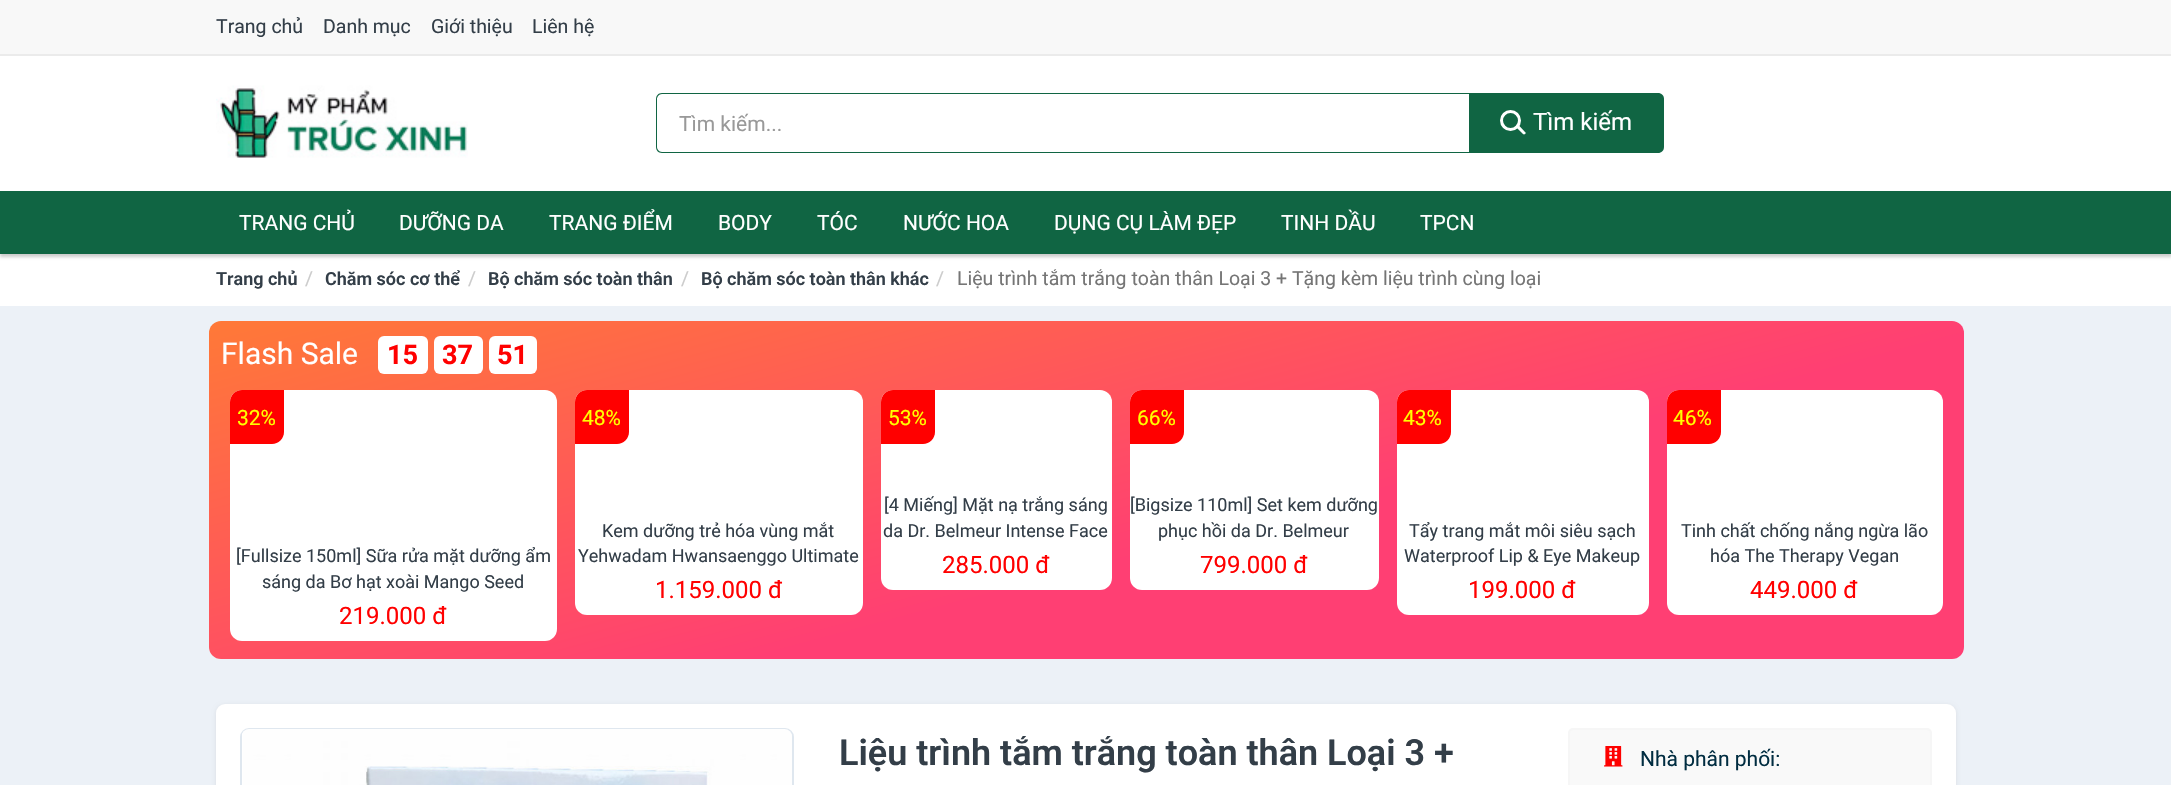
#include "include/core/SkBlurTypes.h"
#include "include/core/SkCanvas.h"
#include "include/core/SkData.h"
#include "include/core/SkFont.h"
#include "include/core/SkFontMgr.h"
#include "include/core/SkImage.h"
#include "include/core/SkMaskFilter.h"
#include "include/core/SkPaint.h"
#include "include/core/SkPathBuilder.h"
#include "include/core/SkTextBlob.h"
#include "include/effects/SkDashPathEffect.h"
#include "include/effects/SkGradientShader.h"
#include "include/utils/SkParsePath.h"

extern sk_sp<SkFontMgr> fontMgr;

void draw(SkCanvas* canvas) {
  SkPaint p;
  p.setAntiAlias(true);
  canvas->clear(SK_ColorWHITE);
  p.setColor(SkColorSetRGB(248, 248, 248));
  canvas->drawRect(SkRect::MakeLTRB(0, 0, 2171, 54), p);
  p.setColor(SkColorSetRGB(235, 235, 235));
  canvas->drawRect(SkRect::MakeLTRB(0, 54, 2171, 56), p);
  canvas->drawImageRect(SkImages::DeferredFromEncodedData(SkData::MakeFromFileName("images/1.png")), SkRect::MakeLTRB(216, 85, 468, 158), SkSamplingOptions());
  p.setColor(SkColorSetRGB(16, 101, 67));
  canvas->drawPath(SkPathBuilder(SkPathFillType::kEvenOdd).moveTo(662, 93).lineTo(1470, 93).lineTo(1470, 153).lineTo(662, 153).cubicTo(658, 153, 656, 150, 656, 147).lineTo(656, 99).cubicTo(656, 96, 658, 93, 662, 93).close().moveTo(662, 94).lineTo(1470, 94).lineTo(1470, 152).lineTo(662, 152).cubicTo(659, 152, 657, 149, 657, 147).lineTo(657, 99).cubicTo(657, 97, 659, 94, 662, 94).close().detach(), p);
  canvas->drawPath(SkPathBuilder().moveTo(1469, 93).lineTo(1658, 93).cubicTo(1661.5f, 93, 1664, 95.5f, 1664, 99).lineTo(1664, 147).cubicTo(1664, 150.5f, 1661.5f, 153, 1658, 153).lineTo(1469, 153).close().detach(), p);
  p.setStyle(SkPaint::kStroke_Style);
  p.setStrokeWidth(3);
  p.setColor(SK_ColorWHITE);
  canvas->drawCircle(1510.5f, 120.5f, 9, p);
  p.setStyle(SkPaint::kFill_Style);
  canvas->drawPath(SkPathBuilder().moveTo(1518, 124.5f).lineTo(1525, 132).cubicTo(1526, 132.5f, 1526, 133.5f, 1525, 134).cubicTo(1524.5f, 134.5f, 1523.5f, 134.5f, 1523, 134).lineTo(1515.5f, 126.5f).close().detach(), p);
  p.setColor(SkColorSetARGB(51, 0, 0, 0));
  p.setMaskFilter(SkMaskFilter::MakeBlur(kNormal_SkBlurStyle, 1.5f));
  canvas->drawRect(SkRect::MakeLTRB(0, 194, 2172, 257), p);
  p.setMaskFilter(nullptr);
  p.setColor(SkColorSetRGB(16, 101, 67));
  canvas->drawRect(SkRect::MakeLTRB(0, 191, 2171, 254), p);
  p.setColor(SkColorSetRGB(236, 241, 247));
  canvas->drawRect(SkRect::MakeLTRB(0, 306, 2171, 785), p);
  {
    const SkColor colors[] = {SkColorSetRGB(255, 121, 55), SkColorSetRGB(255, 63, 115)};
    const float stops[] = {0, 0.6f};
    const SkPoint ends[] = {{985, 113}, {1187, 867}};
    p.setShader(SkGradientShader::MakeLinear(ends, colors, stops, 2, SkTileMode::kClamp));
    p.setAlpha(255);
  }
  canvas->drawRoundRect(SkRect::MakeLTRB(209, 321, 1964, 659), 12, 12, p);
  p.setShader(nullptr);
  p.setColor(SK_ColorWHITE);
  canvas->drawRoundRect(SkRect::MakeLTRB(378, 336, 428, 374), 6, 6, p);
  canvas->drawRoundRect(SkRect::MakeLTRB(434, 336, 483, 374), 6, 6, p);
  canvas->drawRoundRect(SkRect::MakeLTRB(489, 336, 537, 374), 6, 6, p);
  canvas->drawRoundRect(SkRect::MakeLTRB(230, 390, 557, 641), 12, 12, p);
  p.setColor(SkColorSetRGB(255, 0, 0));
  canvas->drawPath(SkPathBuilder().moveTo(242, 390).lineTo(284, 390).lineTo(284, 432).cubicTo(284, 438.5f, 278.5f, 444, 272, 444).lineTo(230, 444).lineTo(230, 402).cubicTo(230, 395.5f, 235.5f, 390, 242, 390).close().detach(), p);
  p.setColor(SK_ColorWHITE);
  canvas->drawRoundRect(SkRect::MakeLTRB(575, 390, 863, 615), 12, 12, p);
  p.setColor(SkColorSetRGB(255, 0, 0));
  canvas->drawPath(SkPathBuilder().moveTo(587, 390).lineTo(629, 390).lineTo(629, 432).cubicTo(629, 438.5f, 623.5f, 444, 617, 444).lineTo(575, 444).lineTo(575, 402).cubicTo(575, 395.5f, 580.5f, 390, 587, 390).close().detach(), p);
  p.setColor(SK_ColorWHITE);
  canvas->drawRoundRect(SkRect::MakeLTRB(881, 390, 1112, 590), 12, 12, p);
  p.setColor(SkColorSetRGB(255, 0, 0));
  canvas->drawPath(SkPathBuilder().moveTo(893, 390).lineTo(935, 390).lineTo(935, 432).cubicTo(935, 438.5f, 929.5f, 444, 923, 444).lineTo(881, 444).lineTo(881, 402).cubicTo(881, 395.5f, 886.5f, 390, 893, 390).close().detach(), p);
  p.setColor(SK_ColorWHITE);
  canvas->drawRoundRect(SkRect::MakeLTRB(1130, 390, 1379, 590), 12, 12, p);
  p.setColor(SkColorSetRGB(255, 0, 0));
  canvas->drawPath(SkPathBuilder().moveTo(1142, 390).lineTo(1184, 390).lineTo(1184, 432).cubicTo(1184, 438.5f, 1178.5f, 444, 1172, 444).lineTo(1130, 444).lineTo(1130, 402).cubicTo(1130, 395.5f, 1135.5f, 390, 1142, 390).close().detach(), p);
  p.setColor(SK_ColorWHITE);
  canvas->drawRoundRect(SkRect::MakeLTRB(1397, 390, 1649, 615), 12, 12, p);
  p.setColor(SkColorSetRGB(255, 0, 0));
  canvas->drawPath(SkPathBuilder().moveTo(1409, 390).lineTo(1451, 390).lineTo(1451, 432).cubicTo(1451, 438.5f, 1445.5f, 444, 1439, 444).lineTo(1397, 444).lineTo(1397, 402).cubicTo(1397, 395.5f, 1402.5f, 390, 1409, 390).close().detach(), p);
  p.setColor(SK_ColorWHITE);
  canvas->drawRoundRect(SkRect::MakeLTRB(1667, 390, 1943, 615), 12, 12, p);
  p.setColor(SkColorSetRGB(255, 0, 0));
  canvas->drawPath(SkPathBuilder().moveTo(1679, 390).lineTo(1721, 390).lineTo(1721, 432).cubicTo(1721, 438.5f, 1715.5f, 444, 1709, 444).lineTo(1667, 444).lineTo(1667, 402).cubicTo(1667, 395.5f, 1672.5f, 390, 1679, 390).close().detach(), p);
  p.setColor(SkColorSetARGB(20, 0, 0, 0));
  p.setMaskFilter(SkMaskFilter::MakeBlur(kNormal_SkBlurStyle, 2));
  canvas->drawRoundRect(SkRect::MakeLTRB(216, 705, 1956, 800), 9, 9, p);
  p.setMaskFilter(nullptr);
  p.setColor(SK_ColorWHITE);
  canvas->drawRoundRect(SkRect::MakeLTRB(216, 704, 1956, 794), 9, 9, p);
  p.setStyle(SkPaint::kStroke_Style);
  p.setStrokeWidth(2);
  p.setColor(SkColorSetRGB(223, 231, 239));
  canvas->drawRoundRect(SkRect::MakeLTRB(241, 729, 793, 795), 8, 8, p);
  canvas->drawImageRect(SkImages::DeferredFromEncodedData(SkData::MakeFromFileName("images/2.png")), SkRect::MakeLTRB(242, 729, 792, 785), SkSamplingOptions());
  p.setStyle(SkPaint::kFill_Style);
  p.setColor(SkColorSetRGB(249, 249, 249));
  canvas->drawRoundRect(SkRect::MakeLTRB(1569, 729, 1931, 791), 4, 4, p);
  p.setStyle(SkPaint::kStroke_Style);
  p.setColor(SkColorSetRGB(246, 246, 246));
  canvas->drawRoundRect(SkRect::MakeLTRB(1569, 729, 1931, 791), 4, 4, p);
  canvas->drawImageRect(SkImages::DeferredFromEncodedData(SkData::MakeFromFileName("images/3.png")), SkRect::MakeLTRB(1604, 746, 1623, 767), SkSamplingOptions());
  SkFont font1(fontMgr->matchFamilyStyle("Roboto", SkFontStyle::Normal()), 19.5f);
  font1.setSubpixel(true);
  p.setStyle(SkPaint::kFill_Style);
  p.setColor(SkColorSetRGB(51, 62, 72));
  canvas->drawString("Trang chủ", 216, 33, font1, p);
  canvas->drawString("Danh mục", 323, 33, font1, p);
  canvas->drawString("Giới thiệu", 431, 33, font1, p);
  canvas->drawString("Liên hệ", 532, 33, font1, p);
  SkFont font2(fontMgr->matchFamilyStyle("Roboto", SkFontStyle::Normal()), 21);
  font2.setSubpixel(true);
  p.setColor(SkColorSetRGB(153, 153, 153));
  canvas->drawString("Tìm kiếm...", 679, 131, font2, p);
  SkFont font3(fontMgr->matchFamilyStyle("Roboto", SkFontStyle::Normal()), 24);
  font3.setSubpixel(true);
  p.setColor(SK_ColorWHITE);
  canvas->drawString("Tìm kiếm", 1533, 130, font3, p);
  canvas->drawString("TRANG CHỦ", 239, 230, font2, p);
  canvas->drawString("DƯỠNG DA", 399, 230, font2, p);
  canvas->drawString("TRANG ĐIỂM", 549, 230, font2, p);
  canvas->drawString("BODY", 718, 230, font2, p);
  canvas->drawString("TÓC", 817, 230, font2, p);
  canvas->drawString("NƯỚC HOA", 903, 230, font2, p);
  canvas->drawString("DỤNG CỤ LÀM ĐẸP", 1054, 230, font2, p);
  canvas->drawString("TINH DẦU", 1281, 230, font2, p);
  canvas->drawString("TPCN", 1420, 230, font2, p);
  SkFont font4(fontMgr->matchFamilyStyle("Roboto", SkFontStyle(600, SkFontStyle::kNormal_Width, SkFontStyle::kUpright_Slant)), 18);
  font4.setSubpixel(true);
  p.setColor(SkColorSetRGB(51, 62, 72));
  canvas->drawString("Trang chủ", 216, 285, font4, p);
  p.setColor(SkColorSetRGB(204, 204, 204));
  canvas->drawString("/", 305, 285, font1, p);
  p.setColor(SkColorSetRGB(51, 62, 72));
  canvas->drawString("Chăm sóc cơ thể", 325, 285, font4, p);
  p.setColor(SkColorSetRGB(204, 204, 204));
  canvas->drawString("/", 468, 285, font1, p);
  p.setColor(SkColorSetRGB(51, 62, 72));
  canvas->drawString("Bộ chăm sóc toàn thân", 488, 285, font4, p);
  p.setColor(SkColorSetRGB(204, 204, 204));
  canvas->drawString("/", 681, 285, font1, p);
  p.setColor(SkColorSetRGB(51, 62, 72));
  canvas->drawString("Bộ chăm sóc toàn thân khác", 701, 285, font4, p);
  p.setColor(SkColorSetRGB(204, 204, 204));
  canvas->drawString("/", 936, 285, font1, p);
  p.setColor(SkColorSetRGB(117, 117, 117));
  canvas->drawString("Liệu trình tắm trắng toàn thân Loại 3 + Tặng kèm liệu trình cùng loại", 957, 285, font1, p);
  SkFont font5(fontMgr->matchFamilyStyle("Roboto", SkFontStyle::Normal()), 30);
  font5.setSubpixel(true);
  p.setColor(SK_ColorWHITE);
  canvas->drawString("Flash Sale", 221, 364, font5, p);
  SkFont font6(fontMgr->matchFamilyStyle("Roboto", SkFontStyle::Bold()), 27);
  font6.setSubpixel(true);
  p.setColor(SkColorSetRGB(255, 0, 0));
  canvas->drawString("15", 387, 364, font6, p);
  canvas->drawString("37", 442, 364, font6, p);
  canvas->drawString("51", 497, 364, font6, p);
  p.setColor(SkColorSetRGB(255, 255, 0));
  canvas->drawString("32%", 237, 425, font2, p);
  SkFont font7(fontMgr->matchFamilyStyle("Roboto", SkFontStyle::Normal()), 18);
  font7.setSubpixel(true);
  p.setColor(SkColorSetRGB(51, 62, 72));
  canvas->drawString("[Fullsize 150ml] Sữa rửa mặt dưỡng ẩm", 236, 562, font7, p);
  canvas->drawString("sáng da Bơ hạt xoài Mango Seed", 262, 588, font7, p);
  p.setColor(SkColorSetRGB(255, 0, 0));
  canvas->drawString("219.000 đ", 339, 624, font3, p);
  p.setColor(SkColorSetRGB(255, 255, 0));
  canvas->drawString("48%", 582, 425, font2, p);
  p.setColor(SkColorSetRGB(51, 62, 72));
  canvas->drawString("Kem dưỡng trẻ hóa vùng mắt", 602, 537, font7, p);
  canvas->drawString("Yehwadam Hwansaenggo Ultimate", 578, 562, font7, p);
  p.setColor(SkColorSetRGB(255, 0, 0));
  canvas->drawString("1.159.000 đ", 655, 598, font3, p);
  p.setColor(SkColorSetRGB(255, 255, 0));
  canvas->drawString("53%", 888, 425, font2, p);
  p.setColor(SkColorSetRGB(51, 62, 72));
  canvas->drawString("[4 Miếng] Mặt nạ trắng sáng", 884, 511, font7, p);
  canvas->drawString("da Dr. Belmeur Intense Face", 883, 537, font7, p);
  p.setColor(SkColorSetRGB(255, 0, 0));
  canvas->drawString("285.000 đ", 942, 573, font3, p);
  p.setColor(SkColorSetRGB(255, 255, 0));
  canvas->drawString("66%", 1137, 425, font2, p);
  p.setColor(SkColorSetRGB(51, 62, 72));
  canvas->drawString("[Bigsize 110ml] Set kem dưỡng", 1130, 511, font7, p);
  canvas->drawString("phục hồi da Dr. Belmeur", 1158, 537, font7, p);
  p.setColor(SkColorSetRGB(255, 0, 0));
  canvas->drawString("799.000 đ", 1200, 573, font3, p);
  p.setColor(SkColorSetRGB(255, 255, 0));
  canvas->drawString("43%", 1403, 425, font2, p);
  p.setColor(SkColorSetRGB(51, 62, 72));
  canvas->drawString("Tẩy trang mắt môi siêu sạch", 1409, 537, font7, p);
  canvas->drawString("Waterproof Lip & Eye Makeup", 1404, 562, font7, p);
  p.setColor(SkColorSetRGB(255, 0, 0));
  canvas->drawString("199.000 đ", 1468, 598, font3, p);
  p.setColor(SkColorSetRGB(255, 255, 0));
  canvas->drawString("46%", 1673, 425, font2, p);
  p.setColor(SkColorSetRGB(51, 62, 72));
  canvas->drawString("Tinh chất chống nắng ngừa lão", 1681, 537, font7, p);
  canvas->drawString("hóa The Therapy Vegan", 1710, 562, font7, p);
  p.setColor(SkColorSetRGB(255, 0, 0));
  canvas->drawString("449.000 đ", 1750, 598, font3, p);
  SkFont font8(fontMgr->matchFamilyStyle("Roboto", SkFontStyle(600, SkFontStyle::kNormal_Width, SkFontStyle::kUpright_Slant)), 36);
  font8.setSubpixel(true);
  p.setColor(SkColorSetRGB(51, 62, 72));
  canvas->drawString("Liệu trình tắm trắng toàn thân Loại 3 +", 839, 765, font8, p);
  p.setColor(SkColorSetRGB(1, 45, 65));
  canvas->drawString("Nhà phân phối:", 1640, 766, font2, p);
}
